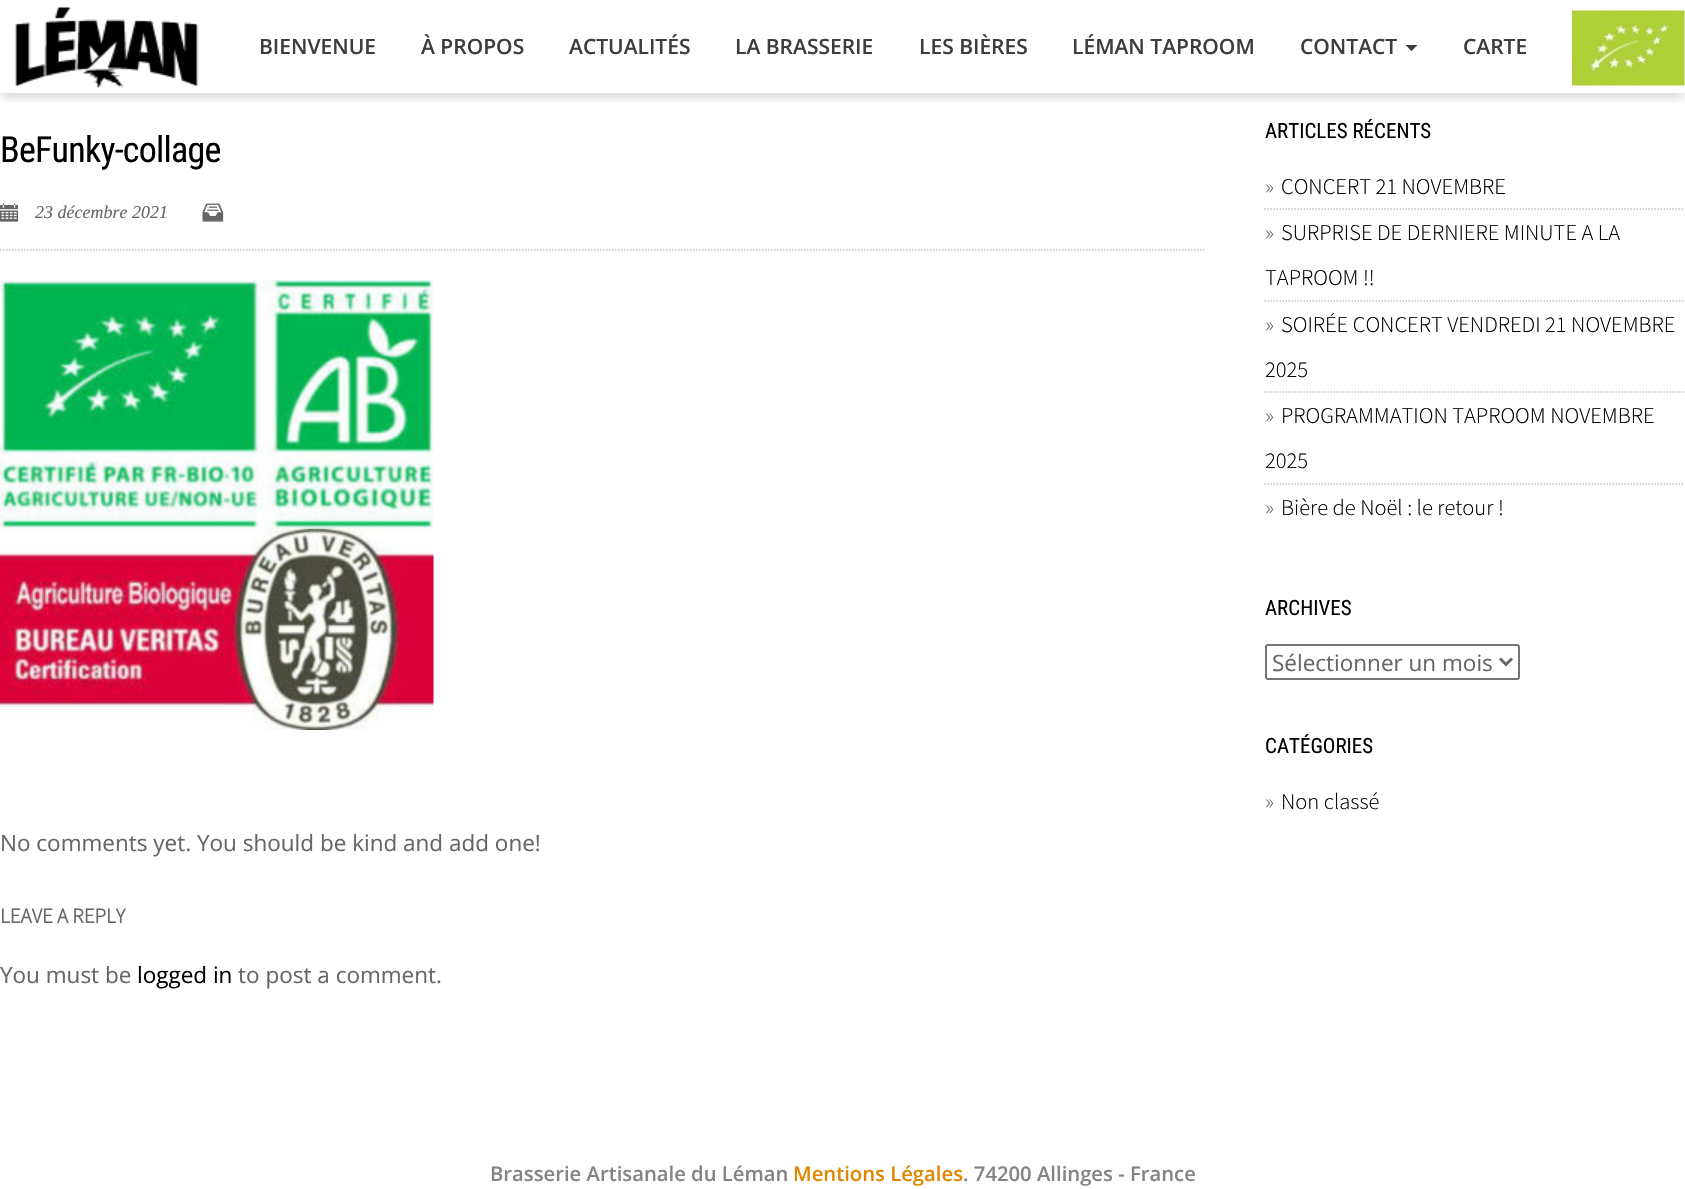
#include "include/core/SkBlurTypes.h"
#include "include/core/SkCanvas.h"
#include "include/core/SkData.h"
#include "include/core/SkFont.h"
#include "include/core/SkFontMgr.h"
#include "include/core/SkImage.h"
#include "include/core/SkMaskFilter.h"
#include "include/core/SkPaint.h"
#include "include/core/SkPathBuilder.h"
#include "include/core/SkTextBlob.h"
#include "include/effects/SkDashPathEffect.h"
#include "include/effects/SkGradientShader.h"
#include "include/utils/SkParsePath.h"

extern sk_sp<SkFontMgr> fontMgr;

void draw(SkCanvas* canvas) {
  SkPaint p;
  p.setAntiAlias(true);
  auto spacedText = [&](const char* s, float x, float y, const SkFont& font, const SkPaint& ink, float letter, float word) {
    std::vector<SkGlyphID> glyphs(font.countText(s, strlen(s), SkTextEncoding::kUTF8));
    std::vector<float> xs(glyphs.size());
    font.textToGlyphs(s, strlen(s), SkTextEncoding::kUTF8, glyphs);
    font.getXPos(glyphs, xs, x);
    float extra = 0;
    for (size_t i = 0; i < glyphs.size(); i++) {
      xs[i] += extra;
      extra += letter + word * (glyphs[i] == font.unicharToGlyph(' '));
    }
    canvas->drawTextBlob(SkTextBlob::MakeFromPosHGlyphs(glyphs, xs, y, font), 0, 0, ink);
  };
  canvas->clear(SK_ColorWHITE);
  canvas->save();
  canvas->clipRect(SkRect::MakeLTRB(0, 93, 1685, 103));
  p.setColor(SkColorSetARGB(38, 0, 0, 0));
  p.setMaskFilter(SkMaskFilter::MakeBlur(kNormal_SkBlurStyle, 4.5f));
  canvas->drawRect(SkRect::MakeLTRB(3, 11, 1683, 98), p);
  p.setMaskFilter(nullptr);
  canvas->restore();
  canvas->drawImageRect(SkImages::DeferredFromEncodedData(SkData::MakeFromFileName("images/1.png")), SkRect::MakeLTRB(14, 7, 199, 88), SkSamplingOptions());
  p.setColor(SkColorSetRGB(61, 61, 61));
  canvas->drawPath(SkPathBuilder().moveTo(1405.5f, 45).lineTo(1417.5f, 45).lineTo(1411.5f, 51).close().detach(), p);
  canvas->drawImageRect(SkImages::DeferredFromEncodedData(SkData::MakeFromFileName("images/2.png")), SkRect::MakeLTRB(1572, 10, 1685, 86), SkSamplingOptions());
  canvas->drawImageRect(SkImages::DeferredFromEncodedData(SkData::MakeFromFileName("images/3.png")), SkRect::MakeLTRB(0, 203, 19, 222), SkSamplingOptions());
  canvas->drawImageRect(SkImages::DeferredFromEncodedData(SkData::MakeFromFileName("images/4.png")), SkRect::MakeLTRB(202, 203, 224, 222), SkSamplingOptions());
  p.setStyle(SkPaint::kStroke_Style);
  p.setStrokeWidth(1.5f);
  p.setColor(SkColorSetRGB(194, 194, 194));
  p.setPathEffect(SkDashPathEffect::Make({{1.5f, 1.5f}}, 0));
  canvas->drawPath(SkPathBuilder().moveTo(0, 250).lineTo(1204.5f, 250).detach(), p);
  p.setPathEffect(nullptr);
  canvas->drawImageRect(SkImages::DeferredFromEncodedData(SkData::MakeFromFileName("images/5.png")), SkRect::MakeLTRB(0, 280, 434, 730), SkSamplingOptions());
  p.setPathEffect(SkDashPathEffect::Make({{1.5f, 1.5f}}, 0));
  canvas->drawPath(SkPathBuilder().moveTo(1264.5f, 209).lineTo(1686, 209).detach(), p);
  p.setPathEffect(nullptr);
  p.setPathEffect(SkDashPathEffect::Make({{1.5f, 1.5f}}, 0));
  canvas->drawPath(SkPathBuilder().moveTo(1264.5f, 301).lineTo(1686, 301).detach(), p);
  p.setPathEffect(nullptr);
  p.setPathEffect(SkDashPathEffect::Make({{1.5f, 1.5f}}, 0));
  canvas->drawPath(SkPathBuilder().moveTo(1264.5f, 392).lineTo(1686, 392).detach(), p);
  p.setPathEffect(nullptr);
  p.setPathEffect(SkDashPathEffect::Make({{1.5f, 1.5f}}, 0));
  canvas->drawPath(SkPathBuilder().moveTo(1264.5f, 484).lineTo(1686, 484).detach(), p);
  p.setPathEffect(nullptr);
  p.setStrokeWidth(2);
  p.setColor(SkColorSetRGB(118, 118, 118));
  canvas->drawRoundRect(SkRect::MakeLTRB(1266, 645, 1519, 679), 2, 2, p);
  p.setStrokeWidth(3);
  p.setColor(SkColorSetRGB(102, 102, 102));
  canvas->drawPath(SkPathBuilder().moveTo(1500, 658.5f).lineTo(1506, 664.5f).lineTo(1512, 658.5f).detach(), p);
  SkFont font1(fontMgr->matchFamilyStyle("Open Sans", SkFontStyle(600, SkFontStyle::kNormal_Width, SkFontStyle::kUpright_Slant)), 21);
  font1.setSubpixel(true);
  p.setStyle(SkPaint::kFill_Style);
  p.setColor(SkColorSetRGB(61, 61, 61));
  canvas->drawString("BIENVENUE", 259, 54, font1, p);
  canvas->drawString("À PROPOS", 421, 54, font1, p);
  canvas->drawString("ACTUALITÉS", 569, 54, font1, p);
  canvas->drawString("LA BRASSERIE", 735, 54, font1, p);
  canvas->drawString("LES BIÈRES", 919, 54, font1, p);
  canvas->drawString("LÉMAN TAPROOM", 1072, 54, font1, p);
  canvas->drawString("CONTACT", 1300, 54, font1, p);
  canvas->drawString("CARTE", 1463, 54, font1, p);
  SkFont font2(fontMgr->matchFamilyStyle("Roboto Condensed", SkFontStyle::Normal()), 36);
  font2.setSubpixel(true);
  p.setColor(SK_ColorBLACK);
  spacedText("BeFunky-collage", 0, 162, font2, p, -0.75f, 0);
  SkFont font3(fontMgr->matchFamilyStyle("Liberation Serif", SkFontStyle::Italic()), 18);
  font3.setSubpixel(true);
  p.setColor(SkColorSetRGB(102, 102, 102));
  canvas->drawString("23 décembre 2021", 35, 218, font3, p);
  SkFont font4(fontMgr->matchFamilyStyle("Open Sans", SkFontStyle::Normal()), 22.5f);
  font4.setSubpixel(true);
  canvas->drawString("No comments yet. You should be kind and add one!", 0, 851, font4, p);
  SkFont font5(fontMgr->matchFamilyStyle("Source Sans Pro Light", SkFontStyle::Bold()), 21);
  font5.setSubpixel(true);
  canvas->drawString("LEAVE A REPLY", 0, 923, font5, p);
  canvas->drawString("You must be", 0, 983, font4, p);
  p.setColor(SK_ColorBLACK);
  canvas->drawString("logged in", 137, 983, font4, p);
  p.setColor(SkColorSetRGB(102, 102, 102));
  canvas->drawString("to post a comment.", 238, 983, font4, p);
  SkFont font6(fontMgr->matchFamilyStyle("Roboto Condensed", SkFontStyle::Normal()), 21);
  font6.setSubpixel(true);
  p.setColor(SK_ColorBLACK);
  canvas->drawString("ARTICLES RÉCENTS", 1265, 138, font6, p);
  SkFont font7(fontMgr->matchFamilyStyle("Source Sans Pro Light", SkFontStyle(300, SkFontStyle::kNormal_Width, SkFontStyle::kUpright_Slant)), 22.5f);
  font7.setSubpixel(true);
  p.setColor(SkColorSetRGB(102, 102, 102));
  canvas->drawString("»", 1265, 194, font7, p);
  p.setColor(SK_ColorBLACK);
  canvas->drawString("CONCERT 21 NOVEMBRE", 1281, 194, font7, p);
  p.setColor(SkColorSetRGB(102, 102, 102));
  canvas->drawString("»", 1265, 240, font7, p);
  p.setColor(SK_ColorBLACK);
  canvas->drawString("SURPRISE DE DERNIERE MINUTE A LA", 1281, 240, font7, p);
  canvas->drawString("TAPROOM !!", 1265, 285, font7, p);
  p.setColor(SkColorSetRGB(102, 102, 102));
  canvas->drawString("»", 1265, 332, font7, p);
  p.setColor(SK_ColorBLACK);
  canvas->drawString("SOIRÉE CONCERT VENDREDI 21 NOVEMBRE", 1281, 332, font7, p);
  canvas->drawString("2025", 1265, 377, font7, p);
  p.setColor(SkColorSetRGB(102, 102, 102));
  canvas->drawString("»", 1265, 423, font7, p);
  p.setColor(SK_ColorBLACK);
  canvas->drawString("PROGRAMMATION TAPROOM NOVEMBRE", 1281, 423, font7, p);
  canvas->drawString("2025", 1265, 468, font7, p);
  p.setColor(SkColorSetRGB(102, 102, 102));
  canvas->drawString("»", 1265, 515, font7, p);
  p.setColor(SK_ColorBLACK);
  canvas->drawString("Bière de Noël : le retour !", 1281, 515, font7, p);
  canvas->drawString("ARCHIVES", 1265, 615, font6, p);
  p.setColor(SkColorSetRGB(102, 102, 102));
  canvas->drawString("Sélectionner un mois", 1272, 671, font4, p);
  p.setColor(SK_ColorBLACK);
  canvas->drawString("CATÉGORIES", 1265, 753, font6, p);
  p.setColor(SkColorSetRGB(102, 102, 102));
  canvas->drawString("»", 1265, 809, font7, p);
  p.setColor(SK_ColorBLACK);
  canvas->drawString("Non classé", 1281, 809, font7, p);
  SkFont font8(fontMgr->matchFamilyStyle("Open Sans", SkFontStyle(600, SkFontStyle::kNormal_Width, SkFontStyle::kUpright_Slant)), 20.25f);
  font8.setSubpixel(true);
  p.setColor(SkColorSetRGB(132, 132, 132));
  canvas->drawString("Brasserie Artisanale du Léman", 490, 1181, font8, p);
  p.setColor(SkColorSetRGB(224, 135, 0));
  canvas->drawString("Mentions Légales", 793, 1181, font8, p);
  p.setColor(SkColorSetRGB(132, 132, 132));
  canvas->drawString(". 74200 Allinges - France", 963, 1181, font8, p);
}
